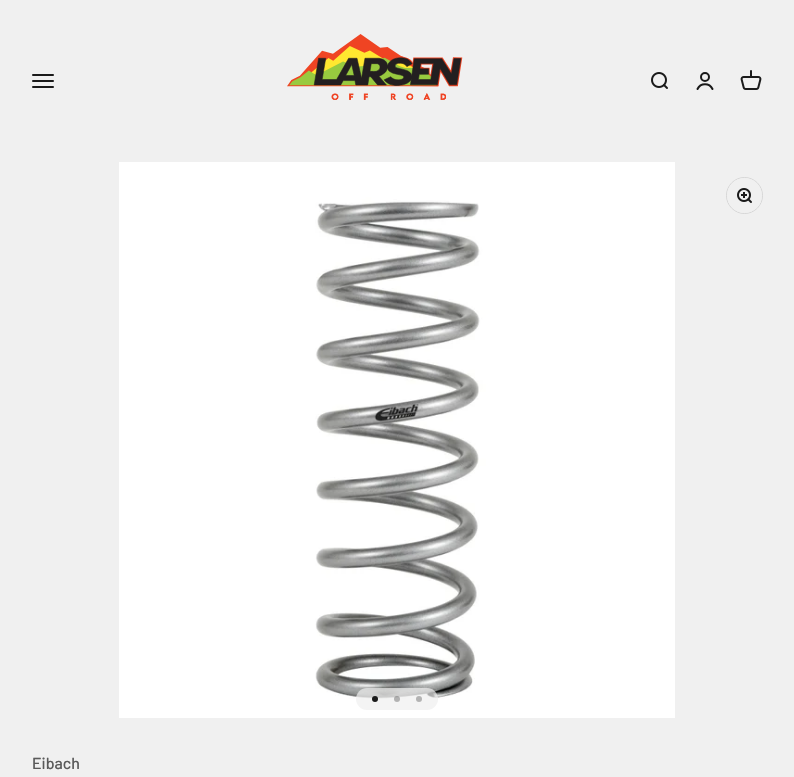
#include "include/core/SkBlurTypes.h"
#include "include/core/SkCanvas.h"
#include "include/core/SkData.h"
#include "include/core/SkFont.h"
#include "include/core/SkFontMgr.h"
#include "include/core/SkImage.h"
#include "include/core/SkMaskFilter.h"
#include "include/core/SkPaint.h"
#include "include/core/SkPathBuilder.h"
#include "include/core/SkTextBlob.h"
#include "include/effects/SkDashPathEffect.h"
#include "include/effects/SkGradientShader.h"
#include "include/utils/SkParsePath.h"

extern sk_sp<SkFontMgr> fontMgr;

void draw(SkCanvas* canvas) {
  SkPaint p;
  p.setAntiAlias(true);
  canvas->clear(SkColorSetRGB(240, 240, 240));
  canvas->drawImageRect(SkImages::DeferredFromEncodedData(SkData::MakeFromFileName("images/1.png")), SkRect::MakeLTRB(32, 74, 54, 88), SkSamplingOptions());
  canvas->drawImageRect(SkImages::DeferredFromEncodedData(SkData::MakeFromFileName("images/2.png")), SkRect::MakeLTRB(287, 34, 463, 100), SkSamplingOptions());
  canvas->drawImageRect(SkImages::DeferredFromEncodedData(SkData::MakeFromFileName("images/3.png")), SkRect::MakeLTRB(651, 72, 668, 89), SkSamplingOptions());
  p.setStyle(SkPaint::kStroke_Style);
  p.setStrokeWidth(2);
  p.setColor(SkColorSetRGB(26, 26, 26));
  canvas->drawCircle(705, 77, 4, p);
  p.setStrokeCap(SkPaint::kRound_Cap);
  canvas->drawPath(SkPathBuilder().moveTo(697.5f, 89).cubicTo(700.5f, 82.5f, 709.5f, 82.5f, 712.5f, 89).detach(), p);
  canvas->drawImageRect(SkImages::DeferredFromEncodedData(SkData::MakeFromFileName("images/4.png")), SkRect::MakeLTRB(740, 70, 762, 90), SkSamplingOptions());
  canvas->drawImageRect(SkImages::DeferredFromEncodedData(SkData::MakeFromFileName("images/5.png")), SkRect::MakeLTRB(119, 162, 675, 718), SkSamplingOptions());
  p.setStrokeWidth(1);
  p.setStrokeCap(SkPaint::kButt_Cap);
  p.setColor(SkColorSetRGB(214, 214, 214));
  canvas->drawCircle(744.5f, 195.5f, 18, p);
  p.setStyle(SkPaint::kFill_Style);
  p.setColor(SkColorSetRGB(240, 240, 240));
  canvas->drawCircle(744.5f, 195.5f, 17.5f, p);
  canvas->drawImageRect(SkImages::DeferredFromEncodedData(SkData::MakeFromFileName("images/6.png")), SkRect::MakeLTRB(737, 188, 752, 203), SkSamplingOptions());
  p.setColor(SkColorSetARGB(179, 240, 240, 240));
  canvas->drawRoundRect(SkRect::MakeLTRB(356, 688, 438, 710), 11, 11, p);
  p.setColor(SkColorSetRGB(26, 26, 26));
  canvas->drawCircle(375, 699, 3, p);
  p.setColor(SkColorSetARGB(77, 26, 26, 26));
  canvas->drawCircle(397, 699, 3, p);
  p.setColor(SkColorSetRGB(179, 179, 179));
  canvas->drawCircle(419, 699, 3, p);
  SkFont font1(fontMgr->matchFamilyStyle("Barlow", SkFontStyle(500, SkFontStyle::kNormal_Width, SkFontStyle::kUpright_Slant)), 16);
  font1.setSubpixel(true);
  p.setColor(SkColorSetRGB(90, 90, 90));
  canvas->drawString("Eibach", 32, 769, font1, p);
}
